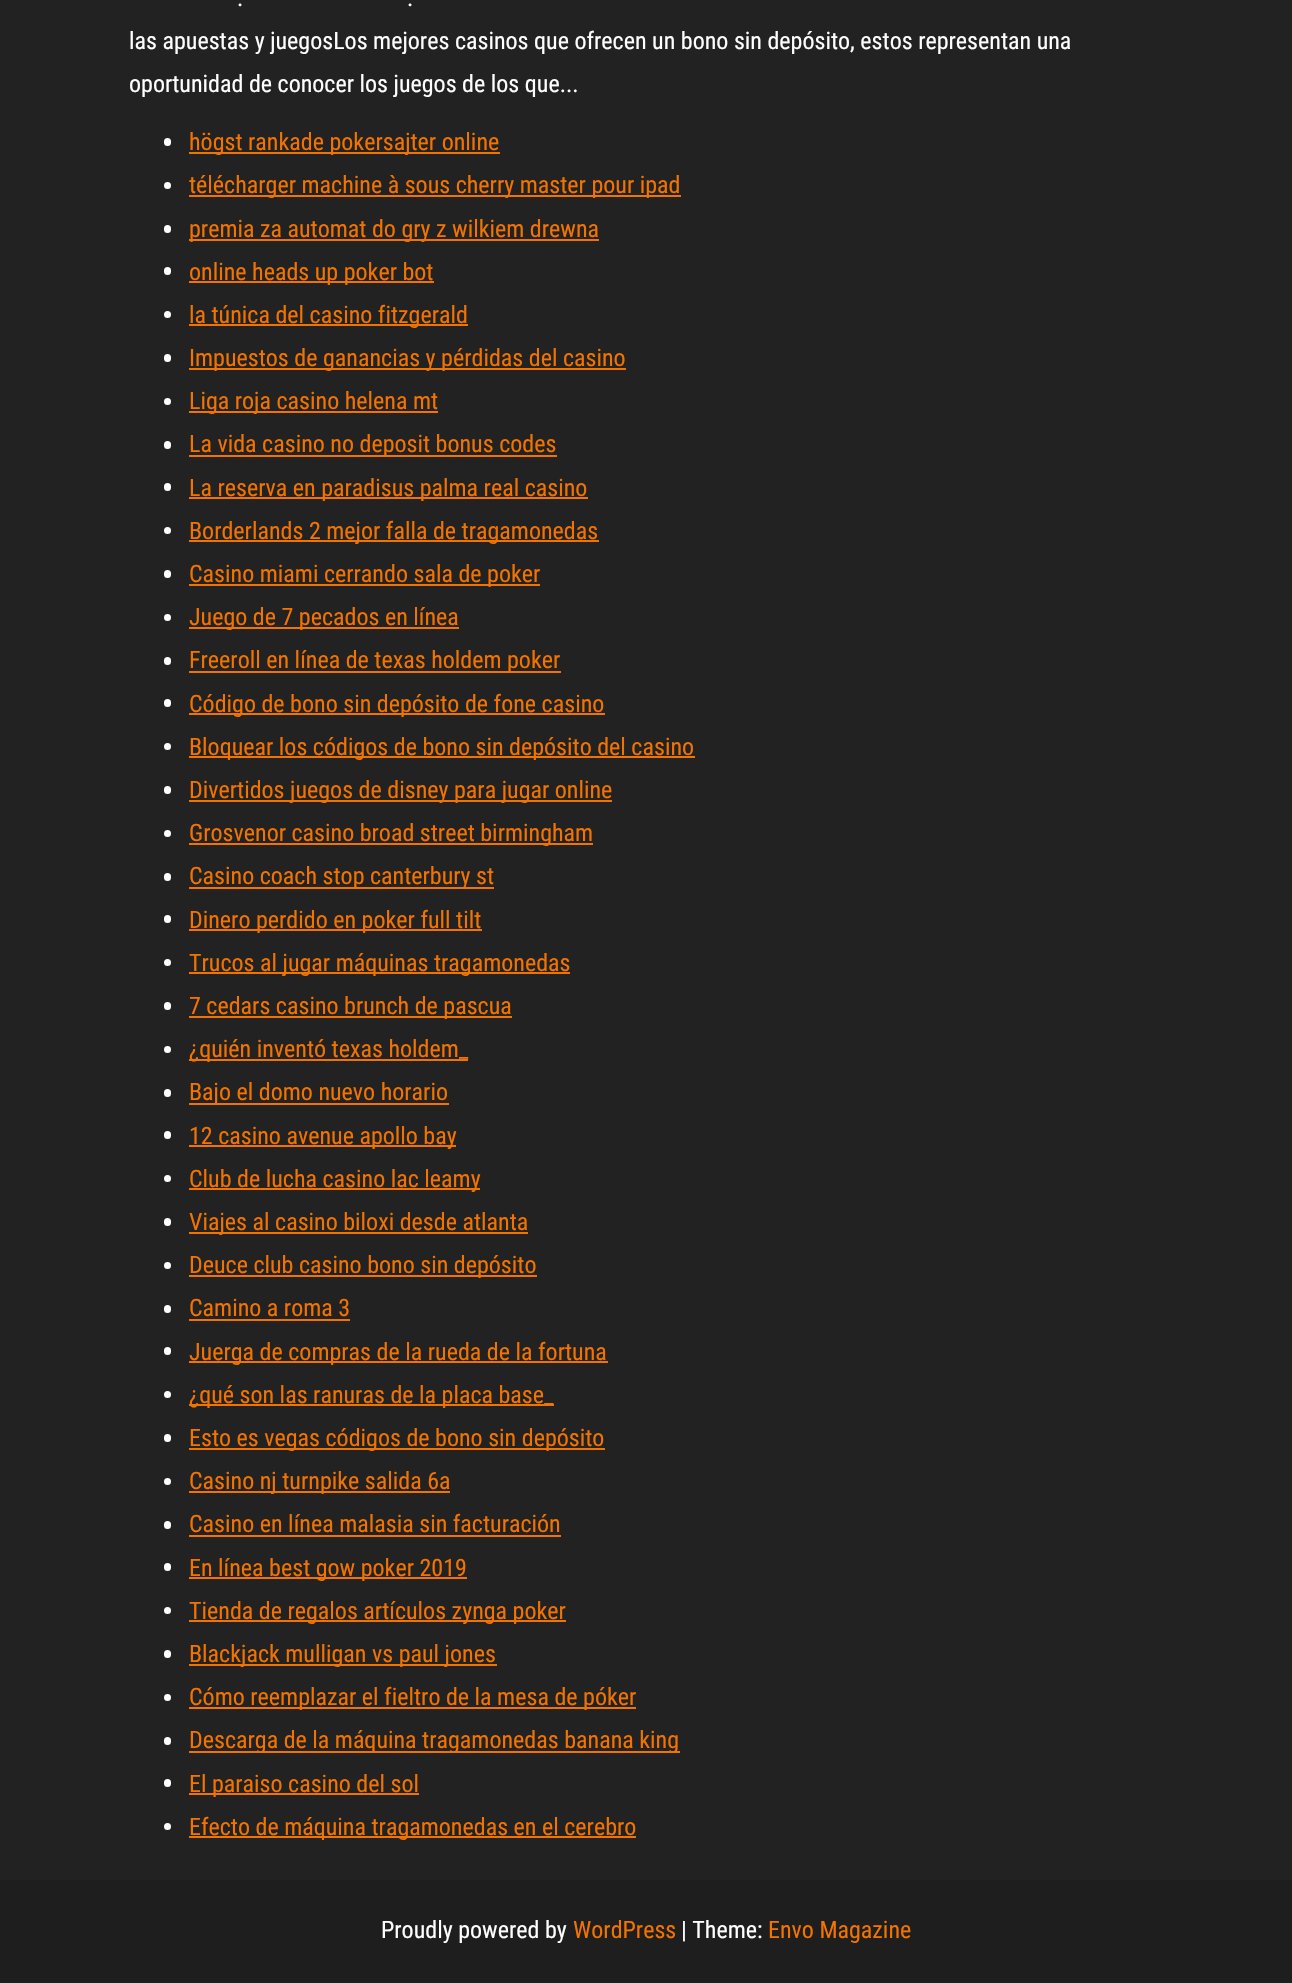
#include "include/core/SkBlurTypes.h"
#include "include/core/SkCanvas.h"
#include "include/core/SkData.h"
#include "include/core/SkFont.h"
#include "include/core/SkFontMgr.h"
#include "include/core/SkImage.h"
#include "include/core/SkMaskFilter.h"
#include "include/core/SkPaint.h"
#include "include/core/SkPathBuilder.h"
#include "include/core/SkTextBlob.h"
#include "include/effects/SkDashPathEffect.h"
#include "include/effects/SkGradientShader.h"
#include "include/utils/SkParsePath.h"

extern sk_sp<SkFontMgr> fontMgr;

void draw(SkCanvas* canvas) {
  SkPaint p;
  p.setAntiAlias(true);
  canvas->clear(SkColorSetRGB(34, 34, 34));
  p.setColor(SK_ColorWHITE);
  canvas->drawRoundRect(SkRect::MakeLTRB(164, 138, 171, 146), 3.5f, 3.5f, p);
  p.setColor(SkColorSetRGB(242, 115, 0));
  canvas->drawRect(SkRect::MakeLTRB(189, 152, 500, 154), p);
  p.setColor(SK_ColorWHITE);
  canvas->drawCircle(167.5f, 185.5f, 3.5f, p);
  p.setColor(SkColorSetRGB(242, 115, 0));
  canvas->drawRect(SkRect::MakeLTRB(189, 195, 681, 197), p);
  p.setColor(SK_ColorWHITE);
  canvas->drawRoundRect(SkRect::MakeLTRB(164, 225, 171, 233), 3.5f, 3.5f, p);
  p.setColor(SkColorSetRGB(242, 115, 0));
  canvas->drawRect(SkRect::MakeLTRB(189, 239, 599, 241), p);
  p.setColor(SK_ColorWHITE);
  canvas->drawRoundRect(SkRect::MakeLTRB(164, 267, 171, 275), 3.5f, 3.5f, p);
  p.setColor(SkColorSetRGB(242, 115, 0));
  canvas->drawRect(SkRect::MakeLTRB(189, 281, 434, 283), p);
  p.setColor(SK_ColorWHITE);
  canvas->drawCircle(167.5f, 314.5f, 3.5f, p);
  p.setColor(SkColorSetRGB(242, 115, 0));
  canvas->drawRect(SkRect::MakeLTRB(189, 324, 468, 326), p);
  p.setColor(SK_ColorWHITE);
  canvas->drawRoundRect(SkRect::MakeLTRB(164, 354, 171, 362), 3.5f, 3.5f, p);
  p.setColor(SkColorSetRGB(242, 115, 0));
  canvas->drawRect(SkRect::MakeLTRB(189, 368, 626, 370), p);
  p.setColor(SK_ColorWHITE);
  canvas->drawCircle(167.5f, 401.5f, 3.5f, p);
  p.setColor(SkColorSetRGB(242, 115, 0));
  canvas->drawRect(SkRect::MakeLTRB(189, 411, 438, 413), p);
  p.setColor(SK_ColorWHITE);
  canvas->drawRoundRect(SkRect::MakeLTRB(164, 441, 171, 449), 3.5f, 3.5f, p);
  p.setColor(SkColorSetRGB(242, 115, 0));
  canvas->drawRect(SkRect::MakeLTRB(189, 455, 557, 457), p);
  p.setColor(SK_ColorWHITE);
  canvas->drawRoundRect(SkRect::MakeLTRB(164, 483, 171, 491), 3.5f, 3.5f, p);
  p.setColor(SkColorSetRGB(242, 115, 0));
  canvas->drawRect(SkRect::MakeLTRB(189, 497, 588, 499), p);
  p.setColor(SK_ColorWHITE);
  canvas->drawCircle(167.5f, 530.5f, 3.5f, p);
  p.setColor(SkColorSetRGB(242, 115, 0));
  canvas->drawRect(SkRect::MakeLTRB(189, 540, 599, 542), p);
  p.setColor(SK_ColorWHITE);
  canvas->drawRoundRect(SkRect::MakeLTRB(164, 570, 171, 578), 3.5f, 3.5f, p);
  p.setColor(SkColorSetRGB(242, 115, 0));
  canvas->drawRect(SkRect::MakeLTRB(189, 584, 540, 586), p);
  p.setColor(SK_ColorWHITE);
  canvas->drawCircle(167.5f, 617.5f, 3.5f, p);
  p.setColor(SkColorSetRGB(242, 115, 0));
  canvas->drawRect(SkRect::MakeLTRB(189, 627, 459, 629), p);
  p.setColor(SK_ColorWHITE);
  canvas->drawRoundRect(SkRect::MakeLTRB(164, 657, 171, 665), 3.5f, 3.5f, p);
  p.setColor(SkColorSetRGB(242, 115, 0));
  canvas->drawRect(SkRect::MakeLTRB(189, 671, 561, 673), p);
  p.setColor(SK_ColorWHITE);
  canvas->drawRoundRect(SkRect::MakeLTRB(164, 699, 171, 707), 3.5f, 3.5f, p);
  p.setColor(SkColorSetRGB(242, 115, 0));
  canvas->drawRect(SkRect::MakeLTRB(189, 713, 605, 715), p);
  p.setColor(SK_ColorWHITE);
  canvas->drawCircle(167.5f, 746.5f, 3.5f, p);
  p.setColor(SkColorSetRGB(242, 115, 0));
  canvas->drawRect(SkRect::MakeLTRB(189, 756, 695, 758), p);
  p.setColor(SK_ColorWHITE);
  canvas->drawRoundRect(SkRect::MakeLTRB(164, 786, 171, 794), 3.5f, 3.5f, p);
  p.setColor(SkColorSetRGB(242, 115, 0));
  canvas->drawRect(SkRect::MakeLTRB(189, 800, 612, 802), p);
  p.setColor(SK_ColorWHITE);
  canvas->drawCircle(167.5f, 833.5f, 3.5f, p);
  p.setColor(SkColorSetRGB(242, 115, 0));
  canvas->drawRect(SkRect::MakeLTRB(189, 843, 593, 845), p);
  p.setColor(SK_ColorWHITE);
  canvas->drawRoundRect(SkRect::MakeLTRB(164, 873, 171, 881), 3.5f, 3.5f, p);
  p.setColor(SkColorSetRGB(242, 115, 0));
  canvas->drawRect(SkRect::MakeLTRB(189, 887, 494, 889), p);
  p.setColor(SK_ColorWHITE);
  canvas->drawRoundRect(SkRect::MakeLTRB(164, 915, 171, 923), 3.5f, 3.5f, p);
  p.setColor(SkColorSetRGB(242, 115, 0));
  canvas->drawRect(SkRect::MakeLTRB(189, 929, 482, 931), p);
  p.setColor(SK_ColorWHITE);
  canvas->drawCircle(167.5f, 962.5f, 3.5f, p);
  p.setColor(SkColorSetRGB(242, 115, 0));
  canvas->drawRect(SkRect::MakeLTRB(189, 972, 570, 974), p);
  p.setColor(SK_ColorWHITE);
  canvas->drawRoundRect(SkRect::MakeLTRB(164, 1002, 171, 1010), 3.5f, 3.5f, p);
  p.setColor(SkColorSetRGB(242, 115, 0));
  canvas->drawRect(SkRect::MakeLTRB(189, 1016, 512, 1018), p);
  p.setColor(SK_ColorWHITE);
  canvas->drawCircle(167.5f, 1049.5f, 3.5f, p);
  p.setColor(SkColorSetRGB(242, 115, 0));
  canvas->drawRect(SkRect::MakeLTRB(189, 1059, 468, 1061), p);
  p.setColor(SK_ColorWHITE);
  canvas->drawRoundRect(SkRect::MakeLTRB(164, 1089, 171, 1097), 3.5f, 3.5f, p);
  p.setColor(SkColorSetRGB(242, 115, 0));
  canvas->drawRect(SkRect::MakeLTRB(189, 1103, 449, 1105), p);
  p.setColor(SK_ColorWHITE);
  canvas->drawRoundRect(SkRect::MakeLTRB(164, 1131, 171, 1139), 3.5f, 3.5f, p);
  p.setColor(SkColorSetRGB(242, 115, 0));
  canvas->drawRect(SkRect::MakeLTRB(189, 1145, 456, 1147), p);
  p.setColor(SK_ColorWHITE);
  canvas->drawCircle(167.5f, 1178.5f, 3.5f, p);
  p.setColor(SkColorSetRGB(242, 115, 0));
  canvas->drawRect(SkRect::MakeLTRB(189, 1188, 480, 1190), p);
  p.setColor(SK_ColorWHITE);
  canvas->drawRoundRect(SkRect::MakeLTRB(164, 1218, 171, 1226), 3.5f, 3.5f, p);
  p.setColor(SkColorSetRGB(242, 115, 0));
  canvas->drawRect(SkRect::MakeLTRB(189, 1232, 528, 1234), p);
  p.setColor(SK_ColorWHITE);
  canvas->drawCircle(167.5f, 1265.5f, 3.5f, p);
  p.setColor(SkColorSetRGB(242, 115, 0));
  canvas->drawRect(SkRect::MakeLTRB(189, 1275, 537, 1277), p);
  p.setColor(SK_ColorWHITE);
  canvas->drawRoundRect(SkRect::MakeLTRB(164, 1305, 171, 1313), 3.5f, 3.5f, p);
  p.setColor(SkColorSetRGB(242, 115, 0));
  canvas->drawRect(SkRect::MakeLTRB(189, 1319, 350, 1321), p);
  p.setColor(SK_ColorWHITE);
  canvas->drawRoundRect(SkRect::MakeLTRB(164, 1347, 171, 1355), 3.5f, 3.5f, p);
  p.setColor(SkColorSetRGB(242, 115, 0));
  canvas->drawRect(SkRect::MakeLTRB(189, 1361, 608, 1363), p);
  p.setColor(SK_ColorWHITE);
  canvas->drawCircle(167.5f, 1394.5f, 3.5f, p);
  p.setColor(SkColorSetRGB(242, 115, 0));
  canvas->drawRect(SkRect::MakeLTRB(189, 1404, 554, 1406), p);
  p.setColor(SK_ColorWHITE);
  canvas->drawRoundRect(SkRect::MakeLTRB(164, 1434, 171, 1442), 3.5f, 3.5f, p);
  p.setColor(SkColorSetRGB(242, 115, 0));
  canvas->drawRect(SkRect::MakeLTRB(189, 1448, 605, 1450), p);
  p.setColor(SK_ColorWHITE);
  canvas->drawCircle(167.5f, 1481.5f, 3.5f, p);
  p.setColor(SkColorSetRGB(242, 115, 0));
  canvas->drawRect(SkRect::MakeLTRB(189, 1491, 450, 1493), p);
  p.setColor(SK_ColorWHITE);
  canvas->drawRoundRect(SkRect::MakeLTRB(164, 1521, 171, 1529), 3.5f, 3.5f, p);
  p.setColor(SkColorSetRGB(242, 115, 0));
  canvas->drawRect(SkRect::MakeLTRB(189, 1535, 561, 1537), p);
  p.setColor(SK_ColorWHITE);
  canvas->drawRoundRect(SkRect::MakeLTRB(164, 1563, 171, 1571), 3.5f, 3.5f, p);
  p.setColor(SkColorSetRGB(242, 115, 0));
  canvas->drawRect(SkRect::MakeLTRB(189, 1577, 467, 1579), p);
  p.setColor(SK_ColorWHITE);
  canvas->drawCircle(167.5f, 1610.5f, 3.5f, p);
  p.setColor(SkColorSetRGB(242, 115, 0));
  canvas->drawRect(SkRect::MakeLTRB(189, 1620, 566, 1622), p);
  p.setColor(SK_ColorWHITE);
  canvas->drawRoundRect(SkRect::MakeLTRB(164, 1650, 171, 1658), 3.5f, 3.5f, p);
  p.setColor(SkColorSetRGB(242, 115, 0));
  canvas->drawRect(SkRect::MakeLTRB(189, 1664, 497, 1666), p);
  p.setColor(SK_ColorWHITE);
  canvas->drawCircle(167.5f, 1697.5f, 3.5f, p);
  p.setColor(SkColorSetRGB(242, 115, 0));
  canvas->drawRect(SkRect::MakeLTRB(189, 1707, 636, 1709), p);
  p.setColor(SK_ColorWHITE);
  canvas->drawRoundRect(SkRect::MakeLTRB(164, 1737, 171, 1745), 3.5f, 3.5f, p);
  p.setColor(SkColorSetRGB(242, 115, 0));
  canvas->drawRect(SkRect::MakeLTRB(189, 1751, 680, 1753), p);
  p.setColor(SK_ColorWHITE);
  canvas->drawRoundRect(SkRect::MakeLTRB(164, 1779, 171, 1787), 3.5f, 3.5f, p);
  p.setColor(SkColorSetRGB(242, 115, 0));
  canvas->drawRect(SkRect::MakeLTRB(189, 1793, 419, 1795), p);
  p.setColor(SK_ColorWHITE);
  canvas->drawCircle(167.5f, 1826.5f, 3.5f, p);
  p.setColor(SkColorSetRGB(242, 115, 0));
  canvas->drawRect(SkRect::MakeLTRB(189, 1836, 636, 1838), p);
  p.setColor(SkColorSetRGB(30, 30, 30));
  canvas->drawRect(SkRect::MakeLTRB(0, 1880, 1292, 1983), p);
  SkFont font1(fontMgr->matchFamilyStyle("Roboto Condensed", SkFontStyle::Normal()), 24);
  font1.setSubpixel(true);
  p.setColor(SK_ColorWHITE);
  canvas->drawString(".", 237, 6, font1, p);
  canvas->drawString(".", 407, 6, font1, p);
  canvas->drawString("las apuestas y juegosLos mejores casinos que ofrecen un bono sin depósito, estos representan una", 129, 49, font1, p);
  canvas->drawString("oportunidad de conocer los juegos de los que...", 129, 92, font1, p);
  p.setColor(SkColorSetRGB(242, 115, 0));
  canvas->drawString("högst rankade pokersajter online", 189, 150, font1, p);
  canvas->drawString("télécharger machine à sous cherry master pour ipad", 189, 193, font1, p);
  canvas->drawString("premia za automat do gry z wilkiem drewna", 189, 237, font1, p);
  canvas->drawString("online heads up poker bot", 189, 280, font1, p);
  canvas->drawString("la túnica del casino fitzgerald", 189, 323, font1, p);
  canvas->drawString("Impuestos de ganancias y pérdidas del casino", 189, 366, font1, p);
  canvas->drawString("Liga roja casino helena mt", 189, 409, font1, p);
  canvas->drawString("La vida casino no deposit bonus codes", 189, 452, font1, p);
  canvas->drawString("La reserva en paradisus palma real casino", 189, 496, font1, p);
  canvas->drawString("Borderlands 2 mejor falla de tragamonedas", 189, 539, font1, p);
  canvas->drawString("Casino miami cerrando sala de poker", 189, 582, font1, p);
  canvas->drawString("Juego de 7 pecados en línea", 189, 625, font1, p);
  canvas->drawString("Freeroll en línea de texas holdem poker", 189, 668, font1, p);
  canvas->drawString("Código de bono sin depósito de fone casino", 189, 712, font1, p);
  canvas->drawString("Bloquear los códigos de bono sin depósito del casino", 189, 755, font1, p);
  canvas->drawString("Divertidos juegos de disney para jugar online", 189, 798, font1, p);
  canvas->drawString("Grosvenor casino broad street birmingham", 189, 841, font1, p);
  canvas->drawString("Casino coach stop canterbury st", 189, 884, font1, p);
  canvas->drawString("Dinero perdido en poker full tilt", 189, 928, font1, p);
  canvas->drawString("Trucos al jugar máquinas tragamonedas", 189, 971, font1, p);
  canvas->drawString("7 cedars casino brunch de pascua", 189, 1014, font1, p);
  canvas->drawString("¿quién inventó texas holdem_", 189, 1057, font1, p);
  canvas->drawString("Bajo el domo nuevo horario", 189, 1100, font1, p);
  canvas->drawString("12 casino avenue apollo bay", 189, 1144, font1, p);
  canvas->drawString("Club de lucha casino lac leamy", 189, 1187, font1, p);
  canvas->drawString("Viajes al casino biloxi desde atlanta", 189, 1230, font1, p);
  canvas->drawString("Deuce club casino bono sin depósito", 189, 1273, font1, p);
  canvas->drawString("Camino a roma 3", 189, 1316, font1, p);
  canvas->drawString("Juerga de compras de la rueda de la fortuna", 189, 1360, font1, p);
  canvas->drawString("¿qué son las ranuras de la placa base_", 189, 1403, font1, p);
  canvas->drawString("Esto es vegas códigos de bono sin depósito", 189, 1446, font1, p);
  canvas->drawString("Casino nj turnpike salida 6a", 189, 1489, font1, p);
  canvas->drawString("Casino en línea malasia sin facturación", 189, 1532, font1, p);
  canvas->drawString("En línea best gow poker 2019", 189, 1576, font1, p);
  canvas->drawString("Tienda de regalos artículos zynga poker", 189, 1619, font1, p);
  canvas->drawString("Blackjack mulligan vs paul jones", 189, 1662, font1, p);
  canvas->drawString("Cómo reemplazar el fieltro de la mesa de póker", 189, 1705, font1, p);
  canvas->drawString("Descarga de la máquina tragamonedas banana king", 189, 1748, font1, p);
  canvas->drawString("El paraiso casino del sol", 189, 1792, font1, p);
  canvas->drawString("Efecto de máquina tragamonedas en el cerebro", 189, 1835, font1, p);
  p.setColor(SK_ColorWHITE);
  canvas->drawString("Proudly powered by", 381, 1938, font1, p);
  p.setColor(SkColorSetRGB(242, 115, 0));
  canvas->drawString("WordPress", 573, 1938, font1, p);
  p.setColor(SK_ColorWHITE);
  canvas->drawString("| Theme:", 681, 1938, font1, p);
  p.setColor(SkColorSetRGB(242, 115, 0));
  canvas->drawString("Envo Magazine", 768, 1938, font1, p);
}
